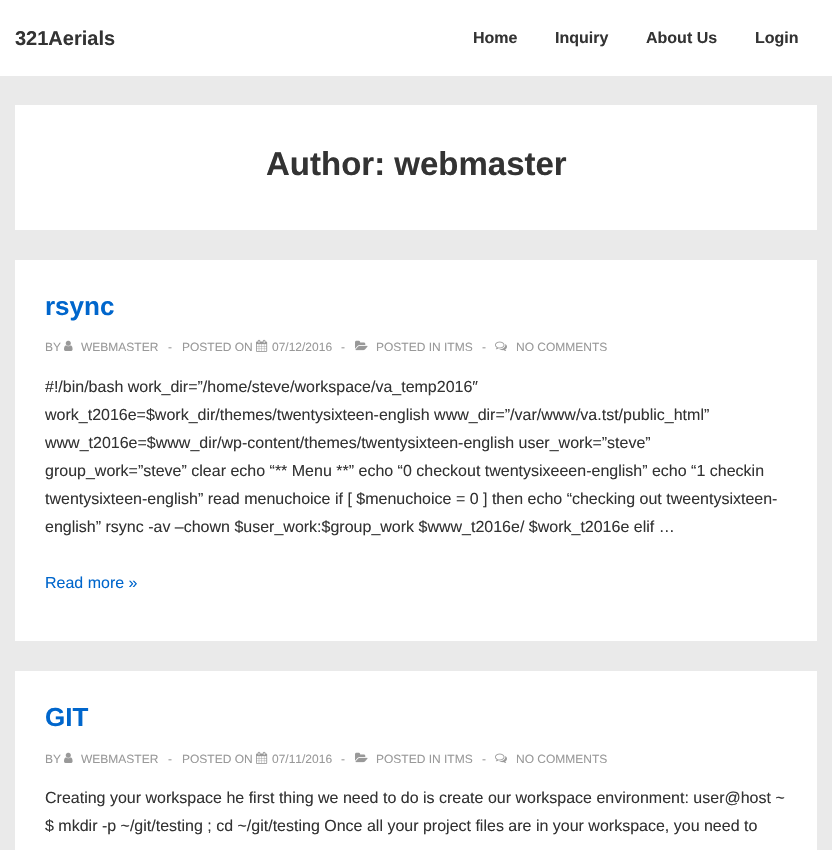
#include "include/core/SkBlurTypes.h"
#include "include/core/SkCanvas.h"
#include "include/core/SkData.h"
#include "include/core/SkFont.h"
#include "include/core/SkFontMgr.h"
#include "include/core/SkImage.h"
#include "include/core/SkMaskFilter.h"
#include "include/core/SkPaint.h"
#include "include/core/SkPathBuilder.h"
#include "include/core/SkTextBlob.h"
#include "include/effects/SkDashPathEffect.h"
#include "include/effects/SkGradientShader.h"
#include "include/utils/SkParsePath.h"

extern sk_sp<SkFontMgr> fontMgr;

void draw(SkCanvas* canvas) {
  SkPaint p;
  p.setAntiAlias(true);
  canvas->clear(SkColorSetRGB(234, 234, 234));
  p.setColor(SK_ColorWHITE);
  canvas->drawRect(SkRect::MakeLTRB(0, 0, 832, 76), p);
  canvas->drawRect(SkRect::MakeLTRB(15, 105, 817, 230), p);
  canvas->drawRect(SkRect::MakeLTRB(15, 260, 817, 641), p);
  canvas->drawImageRect(SkImages::DeferredFromEncodedData(SkData::MakeFromFileName("images/1.png")), SkRect::MakeLTRB(64, 340, 73, 351), SkSamplingOptions());
  canvas->drawImageRect(SkImages::DeferredFromEncodedData(SkData::MakeFromFileName("images/2.png")), SkRect::MakeLTRB(256, 339, 268, 352), SkSamplingOptions());
  canvas->drawImageRect(SkImages::DeferredFromEncodedData(SkData::MakeFromFileName("images/3.png")), SkRect::MakeLTRB(355, 340, 368, 351), SkSamplingOptions());
  canvas->drawImageRect(SkImages::DeferredFromEncodedData(SkData::MakeFromFileName("images/4.png")), SkRect::MakeLTRB(495, 341, 507, 351), SkSamplingOptions());
  canvas->drawRect(SkRect::MakeLTRB(15, 671, 817, 850), p);
  canvas->drawImageRect(SkImages::DeferredFromEncodedData(SkData::MakeFromFileName("images/1.png")), SkRect::MakeLTRB(64, 752, 73, 763), SkSamplingOptions());
  canvas->drawImageRect(SkImages::DeferredFromEncodedData(SkData::MakeFromFileName("images/2.png")), SkRect::MakeLTRB(256, 751, 268, 764), SkSamplingOptions());
  canvas->drawImageRect(SkImages::DeferredFromEncodedData(SkData::MakeFromFileName("images/3.png")), SkRect::MakeLTRB(355, 752, 368, 763), SkSamplingOptions());
  canvas->drawImageRect(SkImages::DeferredFromEncodedData(SkData::MakeFromFileName("images/4.png")), SkRect::MakeLTRB(495, 753, 507, 763), SkSamplingOptions());
  SkFont font1(fontMgr->matchFamilyStyle("Liberation Sans", SkFontStyle::Bold()), 20);
  font1.setSubpixel(true);
  p.setColor(SkColorSetRGB(51, 51, 51));
  canvas->drawString("321Aerials", 15, 45, font1, p);
  SkFont font2(fontMgr->matchFamilyStyle("Liberation Sans", SkFontStyle::Bold()), 16);
  font2.setSubpixel(true);
  canvas->drawString("Home", 473, 43, font2, p);
  canvas->drawString("Inquiry", 555, 43, font2, p);
  canvas->drawString("About Us", 646, 43, font2, p);
  canvas->drawString("Login", 755, 43, font2, p);
  SkFont font3(fontMgr->matchFamilyStyle("Liberation Sans", SkFontStyle::Bold()), 33);
  font3.setSubpixel(true);
  canvas->drawString("Author: webmaster", 266, 175, font3, p);
  SkFont font4(fontMgr->matchFamilyStyle("Liberation Sans", SkFontStyle::Bold()), 26);
  font4.setSubpixel(true);
  p.setColor(SkColorSetRGB(0, 102, 204));
  canvas->drawString("rsync", 45, 315, font4, p);
  SkFont font5(fontMgr->matchFamilyStyle("Liberation Sans", SkFontStyle::Normal()), 12);
  font5.setSubpixel(true);
  p.setColor(SkColorSetRGB(153, 153, 153));
  canvas->drawString("BY", 45, 351, font5, p);
  canvas->drawString("WEBMASTER", 81, 351, font5, p);
  canvas->drawString("-", 168, 351, font5, p);
  canvas->drawString("POSTED ON", 182, 351, font5, p);
  canvas->drawString("07/12/2016", 272, 351, font5, p);
  canvas->drawString("-", 341, 351, font5, p);
  canvas->drawString("POSTED IN ITMS", 376, 351, font5, p);
  canvas->drawString("-", 482, 351, font5, p);
  canvas->drawString("NO COMMENTS", 516, 351, font5, p);
  SkFont font6(fontMgr->matchFamilyStyle("Liberation Sans", SkFontStyle::Normal()), 16);
  font6.setSubpixel(true);
  p.setColor(SkColorSetRGB(51, 51, 51));
  canvas->drawString("#!/bin/bash work_dir=”/home/steve/workspace/va_temp2016″", 45, 392, font6, p);
  canvas->drawString("work_t2016e=$work_dir/themes/twentysixteen-english www_dir=”/var/www/va.tst/public_html”", 45, 420, font6, p);
  canvas->drawString("www_t2016e=$www_dir/wp-content/themes/twentysixteen-english user_work=”steve”", 45, 448, font6, p);
  canvas->drawString("group_work=”steve” clear echo “** Menu **” echo “0 checkout twentysixeeen-english” echo “1 checkin", 45, 476, font6, p);
  canvas->drawString("twentysixteen-english” read menuchoice if [ $menuchoice = 0 ] then echo “checking out tweentysixteen-", 45, 504, font6, p);
  canvas->drawString("english” rsync -av –chown $user_work:$group_work $www_t2016e/ $work_t2016e elif …", 45, 532, font6, p);
  p.setColor(SkColorSetRGB(0, 102, 204));
  canvas->drawString("Read more »", 45, 588, font6, p);
  canvas->drawString("GIT", 45, 726, font4, p);
  p.setColor(SkColorSetRGB(153, 153, 153));
  canvas->drawString("BY", 45, 763, font5, p);
  canvas->drawString("WEBMASTER", 81, 763, font5, p);
  canvas->drawString("-", 168, 763, font5, p);
  canvas->drawString("POSTED ON", 182, 763, font5, p);
  canvas->drawString("07/11/2016", 272, 763, font5, p);
  canvas->drawString("-", 341, 763, font5, p);
  canvas->drawString("POSTED IN ITMS", 376, 763, font5, p);
  canvas->drawString("-", 482, 763, font5, p);
  canvas->drawString("NO COMMENTS", 516, 763, font5, p);
  p.setColor(SkColorSetRGB(51, 51, 51));
  canvas->drawString("Creating your workspace he first thing we need to do is create our workspace environment: user@host ~", 45, 803, font6, p);
  canvas->drawString("$ mkdir -p ~/git/testing ; cd ~/git/testing Once all your project files are in your workspace, you need to", 45, 831, font6, p);
}
